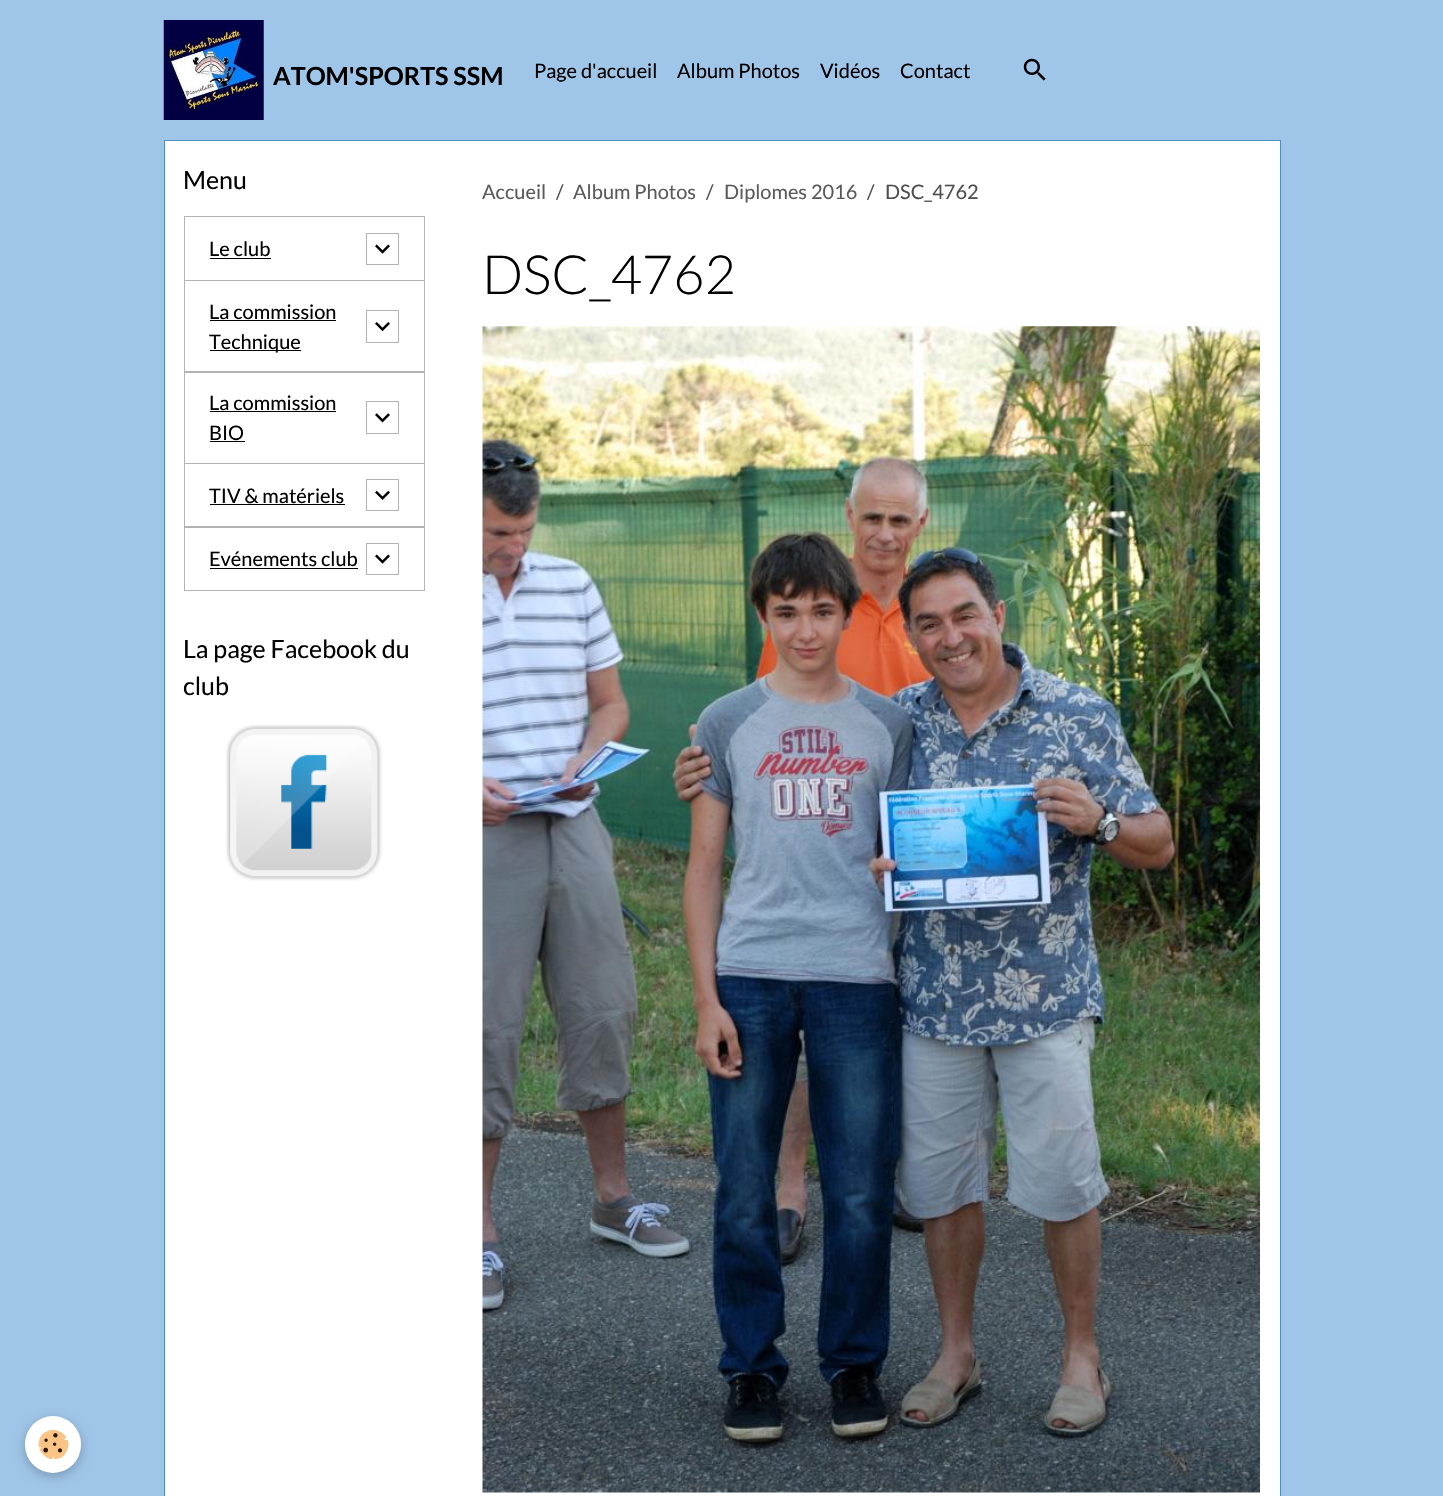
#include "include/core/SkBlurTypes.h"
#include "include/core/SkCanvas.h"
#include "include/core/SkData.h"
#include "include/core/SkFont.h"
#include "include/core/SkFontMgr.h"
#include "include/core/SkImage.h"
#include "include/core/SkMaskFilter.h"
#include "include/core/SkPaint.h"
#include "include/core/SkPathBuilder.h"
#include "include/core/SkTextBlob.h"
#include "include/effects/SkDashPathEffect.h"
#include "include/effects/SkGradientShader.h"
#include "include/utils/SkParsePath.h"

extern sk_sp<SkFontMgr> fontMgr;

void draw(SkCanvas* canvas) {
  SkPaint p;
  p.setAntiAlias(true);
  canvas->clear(SkColorSetRGB(159, 197, 232));
  canvas->drawImageRect(SkImages::DeferredFromEncodedData(SkData::MakeFromFileName("images/1.png")), SkRect::MakeLTRB(163, 20, 264, 120), SkSamplingOptions());
  canvas->drawImageRect(SkImages::DeferredFromEncodedData(SkData::MakeFromFileName("images/2.png")), SkRect::MakeLTRB(1023, 58, 1046, 81), SkSamplingOptions());
  p.setColor(SK_ColorWHITE);
  canvas->drawRect(SkRect::MakeLTRB(164.5f, 140.5f, 1280.5f, 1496.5f), p);
  p.setStyle(SkPaint::kStroke_Style);
  p.setStrokeWidth(1);
  p.setColor(SkColorSetRGB(76, 143, 186));
  canvas->drawRect(SkRect::MakeLTRB(164.5f, 140.5f, 1280.5f, 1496.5f), p);
  p.setColor(SkColorSetRGB(179, 179, 179));
  canvas->drawRect(SkRect::MakeLTRB(184.5f, 216.5f, 424.5f, 280.5f), p);
  p.setStyle(SkPaint::kFill_Style);
  p.setColor(SK_ColorBLACK);
  canvas->drawRect(SkRect::MakeLTRB(210, 258, 271, 259), p);
  p.setStyle(SkPaint::kStroke_Style);
  p.setColor(SkColorSetRGB(179, 179, 179));
  canvas->drawRect(SkRect::MakeLTRB(366.5f, 233.5f, 398.5f, 264.5f), p);
  canvas->drawImageRect(SkImages::DeferredFromEncodedData(SkData::MakeFromFileName("images/3.png")), SkRect::MakeLTRB(375, 244, 390, 254), SkSamplingOptions());
  canvas->drawRect(SkRect::MakeLTRB(184.5f, 280.5f, 424.5f, 372.5f), p);
  p.setStyle(SkPaint::kFill_Style);
  p.setColor(SK_ColorBLACK);
  canvas->drawRect(SkRect::MakeLTRB(210, 320, 336, 321), p);
  canvas->drawRect(SkRect::MakeLTRB(210, 350, 301, 351), p);
  p.setStyle(SkPaint::kStroke_Style);
  p.setColor(SkColorSetRGB(179, 179, 179));
  canvas->drawRect(SkRect::MakeLTRB(366.5f, 310.5f, 398.5f, 342.5f), p);
  canvas->drawImageRect(SkImages::DeferredFromEncodedData(SkData::MakeFromFileName("images/4.png")), SkRect::MakeLTRB(375, 322, 390, 332), SkSamplingOptions());
  canvas->drawRect(SkRect::MakeLTRB(184.5f, 371.5f, 424.5f, 463.5f), p);
  p.setStyle(SkPaint::kFill_Style);
  p.setColor(SK_ColorBLACK);
  canvas->drawRect(SkRect::MakeLTRB(210, 411, 336, 412), p);
  canvas->drawRect(SkRect::MakeLTRB(210, 441, 245, 442), p);
  p.setStyle(SkPaint::kStroke_Style);
  p.setColor(SkColorSetRGB(179, 179, 179));
  canvas->drawRect(SkRect::MakeLTRB(366.5f, 401.5f, 398.5f, 433.5f), p);
  canvas->drawImageRect(SkImages::DeferredFromEncodedData(SkData::MakeFromFileName("images/5.png")), SkRect::MakeLTRB(375, 413, 390, 423), SkSamplingOptions());
  canvas->drawRect(SkRect::MakeLTRB(184.5f, 463.5f, 424.5f, 527.5f), p);
  p.setStyle(SkPaint::kFill_Style);
  p.setColor(SK_ColorBLACK);
  canvas->drawRect(SkRect::MakeLTRB(210, 504, 345, 505), p);
  p.setStyle(SkPaint::kStroke_Style);
  p.setColor(SkColorSetRGB(179, 179, 179));
  canvas->drawRect(SkRect::MakeLTRB(366.5f, 479.5f, 398.5f, 510.5f), p);
  canvas->drawImageRect(SkImages::DeferredFromEncodedData(SkData::MakeFromFileName("images/6.png")), SkRect::MakeLTRB(375, 490, 390, 500), SkSamplingOptions());
  canvas->drawRect(SkRect::MakeLTRB(184.5f, 526.5f, 424.5f, 590.5f), p);
  p.setStyle(SkPaint::kFill_Style);
  p.setColor(SK_ColorBLACK);
  canvas->drawRect(SkRect::MakeLTRB(210, 568, 358, 569), p);
  p.setStyle(SkPaint::kStroke_Style);
  p.setColor(SkColorSetRGB(179, 179, 179));
  canvas->drawRect(SkRect::MakeLTRB(366.5f, 543.5f, 398.5f, 574.5f), p);
  canvas->drawImageRect(SkImages::DeferredFromEncodedData(SkData::MakeFromFileName("images/3.png")), SkRect::MakeLTRB(375, 554, 390, 564), SkSamplingOptions());
  canvas->drawImageRect(SkImages::DeferredFromEncodedData(SkData::MakeFromFileName("images/7.png")), SkRect::MakeLTRB(226, 725, 382, 881), SkSamplingOptions());
  canvas->drawImageRect(SkImages::DeferredFromEncodedData(SkData::MakeFromFileName("images/8.png")), SkRect::MakeLTRB(482, 326, 1260, 1493), SkSamplingOptions());
  p.setStyle(SkPaint::kFill_Style);
  p.setColor(SkColorSetARGB(61, 0, 0, 0));
  p.setMaskFilter(SkMaskFilter::MakeBlur(kNormal_SkBlurStyle, 6));
  canvas->drawRoundRect(SkRect::MakeLTRB(25, 1420, 81, 1476), 28, 28, p);
  p.setMaskFilter(nullptr);
  p.setColor(SK_ColorWHITE);
  canvas->drawRoundRect(SkRect::MakeLTRB(25, 1416, 81, 1473), 28, 28, p);
  canvas->drawImageRect(SkImages::DeferredFromEncodedData(SkData::MakeFromFileName("images/9.png")), SkRect::MakeLTRB(38, 1429, 69, 1460), SkSamplingOptions());
  SkFont font1(fontMgr->matchFamilyStyle("Lato", SkFontStyle::Bold()), 25);
  font1.setSubpixel(true);
  p.setColor(SK_ColorBLACK);
  canvas->drawString("ATOM'SPORTS SSM", 273, 85, font1, p);
  SkFont font2(fontMgr->matchFamilyStyle("Lato", SkFontStyle::Normal()), 20);
  font2.setSubpixel(true);
  canvas->drawString("Page d'accueil", 534, 78, font2, p);
  canvas->drawString("Album Photos", 677, 78, font2, p);
  canvas->drawString("Vidéos", 820, 78, font2, p);
  canvas->drawString("Contact", 900, 78, font2, p);
  SkFont font3(fontMgr->matchFamilyStyle("Lato", SkFontStyle::Normal()), 25);
  font3.setSubpixel(true);
  canvas->drawString("Menu", 183, 189, font3, p);
  canvas->drawString("Le club", 209, 256, font2, p);
  canvas->drawString("La commission", 209, 319, font2, p);
  canvas->drawString("Technique", 209, 349, font2, p);
  canvas->drawString("La commission", 209, 410, font2, p);
  canvas->drawString("BIO", 209, 440, font2, p);
  canvas->drawString("TIV & matériels", 209, 503, font2, p);
  canvas->drawString("Evénements club", 209, 566, font2, p);
  canvas->drawString("La page Facebook du", 183, 658, font3, p);
  canvas->drawString("club", 183, 695, font3, p);
  p.setColor(SkColorSetRGB(90, 90, 90));
  canvas->drawString("Accueil", 482, 199, font2, p);
  p.setColor(SkColorSetRGB(77, 77, 77));
  canvas->drawString("/", 556, 199, font2, p);
  p.setColor(SkColorSetRGB(90, 90, 90));
  canvas->drawString("Album Photos", 573, 199, font2, p);
  p.setColor(SkColorSetRGB(77, 77, 77));
  canvas->drawString("/", 706, 199, font2, p);
  p.setColor(SkColorSetRGB(90, 90, 90));
  canvas->drawString("Diplomes 2016", 724, 199, font2, p);
  p.setColor(SkColorSetRGB(77, 77, 77));
  canvas->drawString("/", 867, 199, font2, p);
  canvas->drawString("DSC_4762", 885, 199, font2, p);
  SkFont font4(fontMgr->matchFamilyStyle("Lato", SkFontStyle(300, SkFontStyle::kNormal_Width, SkFontStyle::kUpright_Slant)), 54);
  font4.setSubpixel(true);
  p.setColor(SK_ColorBLACK);
  canvas->drawString("DSC_4762", 482, 294, font4, p);
}
